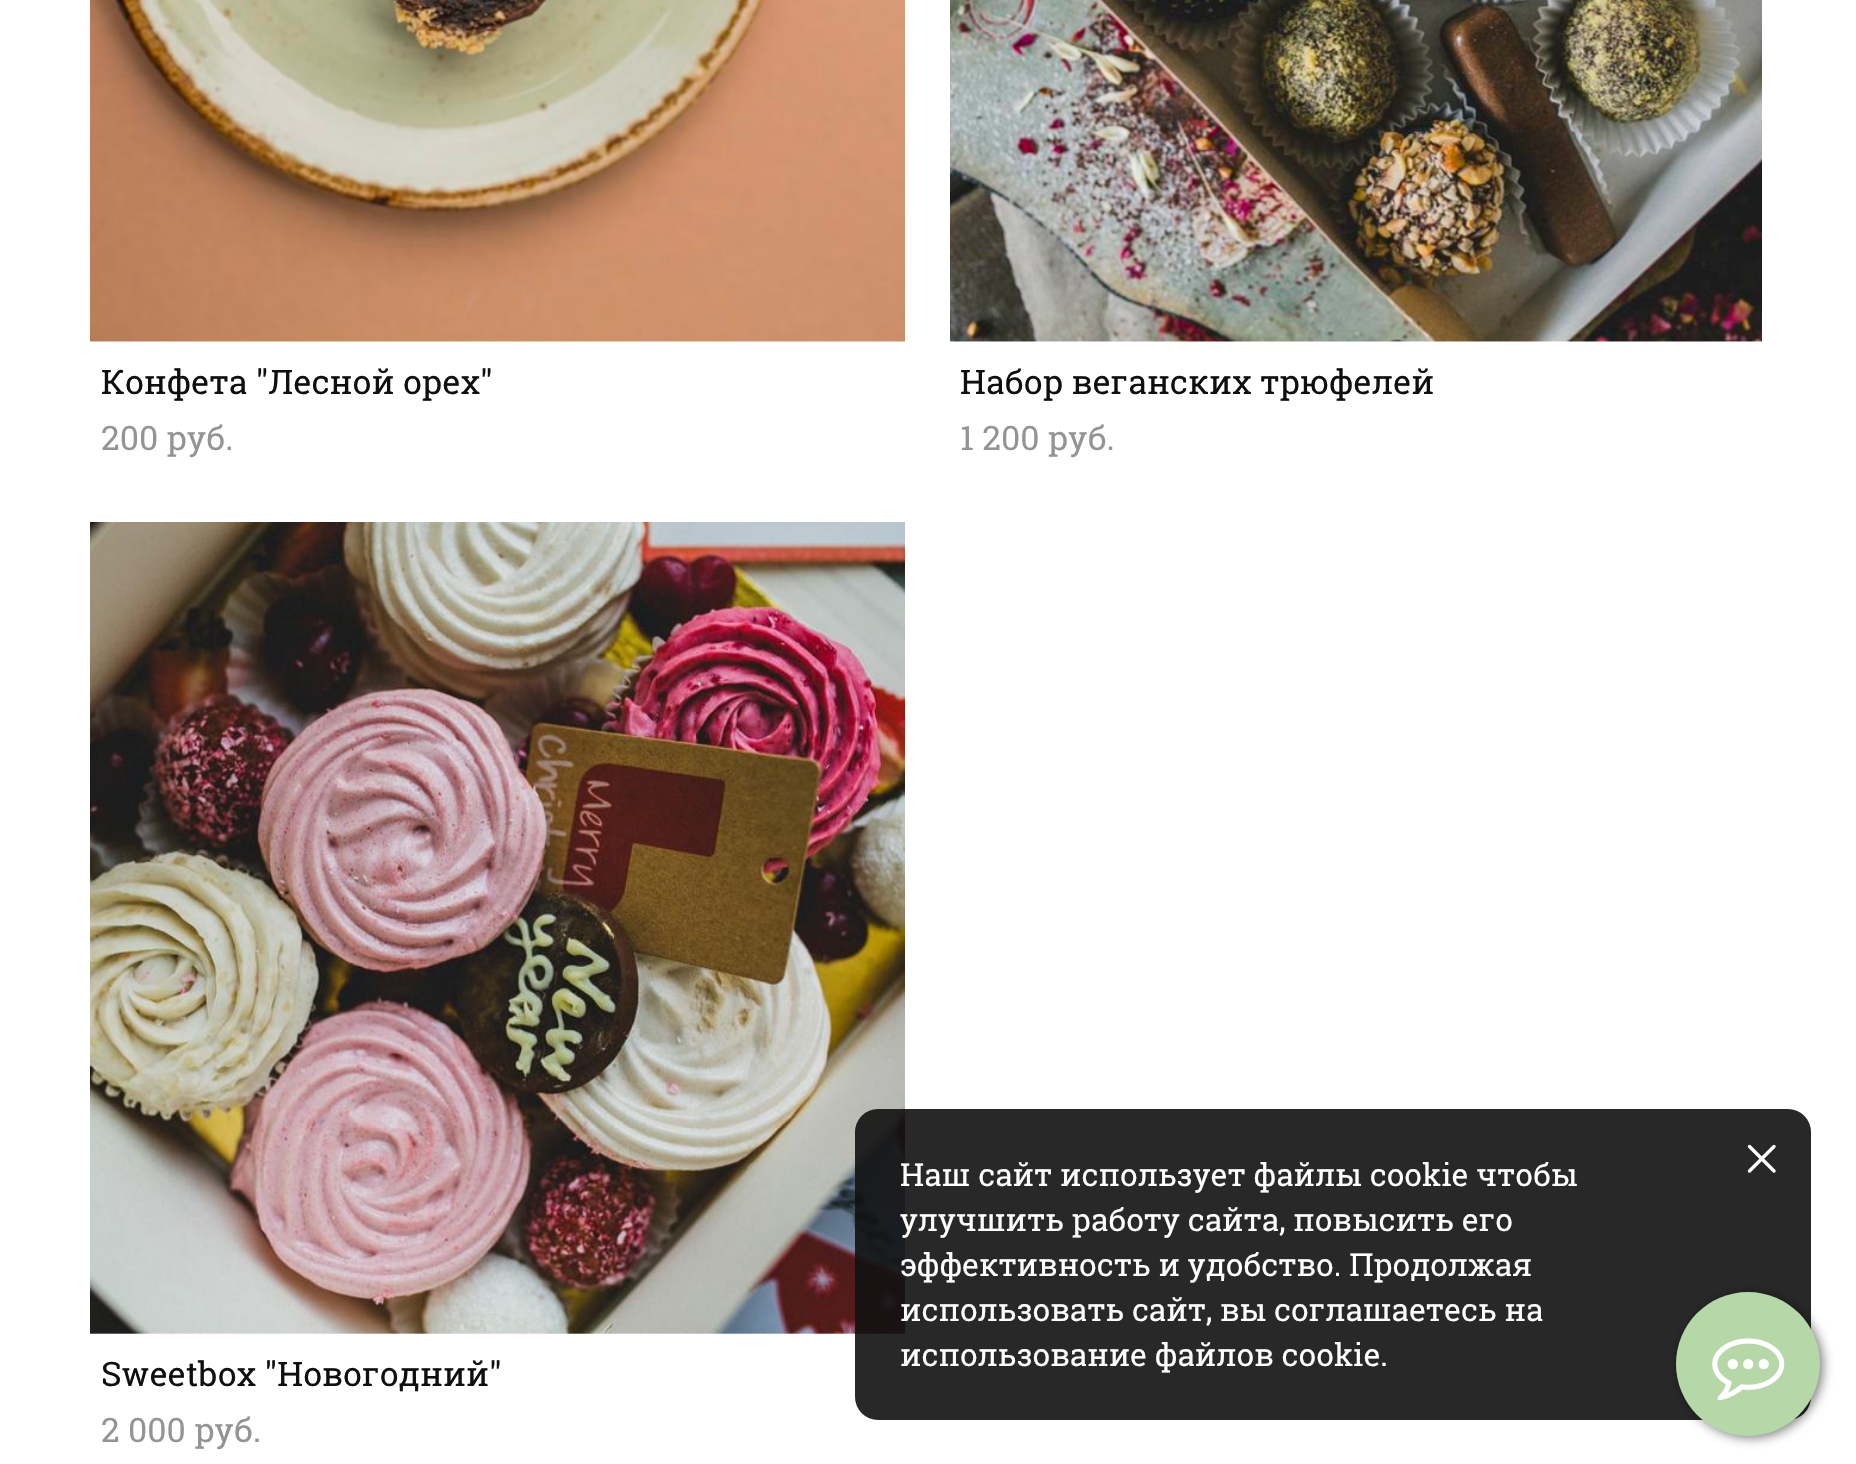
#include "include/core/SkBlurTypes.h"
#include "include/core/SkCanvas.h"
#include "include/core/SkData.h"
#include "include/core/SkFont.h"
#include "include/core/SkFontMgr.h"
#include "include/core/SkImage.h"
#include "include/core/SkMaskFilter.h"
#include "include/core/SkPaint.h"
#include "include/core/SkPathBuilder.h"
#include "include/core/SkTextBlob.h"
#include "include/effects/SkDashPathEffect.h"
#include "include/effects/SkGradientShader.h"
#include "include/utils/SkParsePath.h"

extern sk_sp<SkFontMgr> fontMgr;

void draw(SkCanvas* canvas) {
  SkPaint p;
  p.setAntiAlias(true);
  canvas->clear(SK_ColorWHITE);
  canvas->drawImageRect(SkImages::DeferredFromEncodedData(SkData::MakeFromFileName("images/1.png")), SkRect::MakeLTRB(90, 0, 905, 342), SkSamplingOptions());
  canvas->drawImageRect(SkImages::DeferredFromEncodedData(SkData::MakeFromFileName("images/2.png")), SkRect::MakeLTRB(950, 0, 1762, 342), SkSamplingOptions());
  canvas->drawImageRect(SkImages::DeferredFromEncodedData(SkData::MakeFromFileName("images/3.png")), SkRect::MakeLTRB(90, 522, 905, 1334), SkSamplingOptions());
  p.setColor(SkColorSetARGB(230, 17, 17, 17));
  canvas->drawRoundRect(SkRect::MakeLTRB(855, 1109, 1811, 1420), 23, 23, p);
  p.setStyle(SkPaint::kStroke_Style);
  p.setStrokeWidth(3.4f);
  p.setStrokeCap(SkPaint::kRound_Cap);
  p.setStrokeJoin(SkPaint::kRound_Join);
  p.setColor(SK_ColorWHITE);
  canvas->drawPath(SkPathBuilder().moveTo(1774, 1146.5f).lineTo(1749.5f, 1171).moveTo(1749.5f, 1146.5f).lineTo(1774, 1171).detach(), p);
  p.setStyle(SkPaint::kFill_Style);
  p.setColor(SkColorSetARGB(128, 0, 0, 0));
  p.setMaskFilter(SkMaskFilter::MakeBlur(kNormal_SkBlurStyle, 5.5f));
  canvas->drawRoundRect(SkRect::MakeLTRB(1679, 1294, 1823, 1438), 72, 72, p);
  p.setMaskFilter(nullptr);
  p.setColor(SkColorSetRGB(182, 215, 168));
  canvas->drawCircle(1748, 1364, 72, p);
  canvas->drawImageRect(SkImages::DeferredFromEncodedData(SkData::MakeFromFileName("images/4.png")), SkRect::MakeLTRB(1712, 1338, 1785, 1401), SkSamplingOptions());
  SkFont font1(fontMgr->matchFamilyStyle("Roboto Slab", SkFontStyle::Normal()), 33.75f);
  font1.setSubpixel(true);
  p.setColor(SkColorSetRGB(15, 15, 15));
  canvas->drawString("Конфета \"Лесной орех\"", 101, 394, font1, p);
  p.setColor(SkColorSetRGB(148, 148, 148));
  canvas->drawString("200 pуб.", 101, 450, font1, p);
  p.setColor(SkColorSetRGB(15, 15, 15));
  canvas->drawString("Набор веганских трюфелей", 960, 394, font1, p);
  p.setColor(SkColorSetRGB(148, 148, 148));
  canvas->drawString("1 200 pуб.", 960, 450, font1, p);
  p.setColor(SkColorSetRGB(15, 15, 15));
  canvas->drawString("Sweetbox \"Новогодний\"", 101, 1386, font1, p);
  p.setColor(SkColorSetRGB(148, 148, 148));
  canvas->drawString("2 000 pуб.", 101, 1442, font1, p);
  SkFont font2(fontMgr->matchFamilyStyle("Roboto Slab", SkFontStyle::Normal()), 31.5f);
  font2.setSubpixel(true);
  p.setColor(SK_ColorWHITE);
  canvas->drawString("Наш сайт использует файлы cookie чтобы", 900, 1186, font2, p);
  canvas->drawString("улучшить работу сайта, повысить его", 900, 1231, font2, p);
  canvas->drawString("эффективность и удобство. Продолжая", 900, 1276, font2, p);
  canvas->drawString("использовать сайт, вы соглашаетесь на", 900, 1321, font2, p);
  canvas->drawString("использование файлов cookie.", 900, 1366, font2, p);
}
